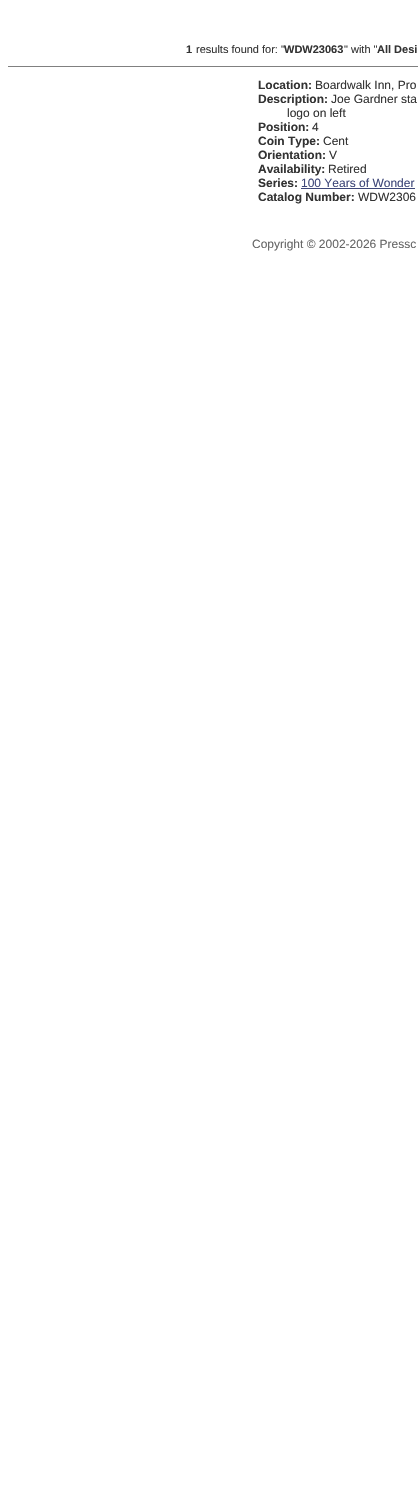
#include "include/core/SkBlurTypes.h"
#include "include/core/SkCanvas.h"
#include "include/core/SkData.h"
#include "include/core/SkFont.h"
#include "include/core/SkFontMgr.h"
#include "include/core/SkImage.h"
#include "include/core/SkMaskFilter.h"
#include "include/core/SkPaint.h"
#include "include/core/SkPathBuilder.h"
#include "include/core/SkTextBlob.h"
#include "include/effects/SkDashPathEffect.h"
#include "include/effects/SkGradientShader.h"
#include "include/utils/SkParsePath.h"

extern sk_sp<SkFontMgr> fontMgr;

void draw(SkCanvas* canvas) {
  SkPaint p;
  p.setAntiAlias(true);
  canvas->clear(SK_ColorWHITE);
  p.setColor(SkColorSetRGB(128, 128, 128));
  canvas->drawRect(SkRect::MakeLTRB(8, 66, 418, 67), p);
  p.setColor(SkColorSetRGB(62, 71, 121));
  canvas->drawRect(SkRect::MakeLTRB(301, 188, 415, 189), p);
  SkFont font1(fontMgr->matchFamilyStyle("Liberation Sans", SkFontStyle::Bold()), 11);
  font1.setSubpixel(true);
  p.setColor(SkColorSetRGB(51, 51, 51));
  canvas->drawString("1", 186, 53, font1, p);
  SkFont font2(fontMgr->matchFamilyStyle("Liberation Sans", SkFontStyle::Normal()), 11);
  font2.setSubpixel(true);
  canvas->drawString("results found for: \"", 196, 53, font2, p);
  canvas->drawString("WDW23063", 284, 53, font1, p);
  canvas->drawString("\" with \"", 344, 53, font2, p);
  canvas->drawString("All Desi", 377, 53, font1, p);
  SkFont font3(fontMgr->matchFamilyStyle("Liberation Sans", SkFontStyle::Bold()), 12);
  font3.setSubpixel(true);
  canvas->drawString("Location:", 258, 89, font3, p);
  SkFont font4(fontMgr->matchFamilyStyle("Liberation Sans", SkFontStyle::Normal()), 12);
  font4.setSubpixel(true);
  canvas->drawString("Boardwalk Inn, Pro", 315, 89, font4, p);
  canvas->drawString("Description:", 258, 103, font3, p);
  canvas->drawString("Joe Gardner sta", 331, 103, font4, p);
  canvas->drawString("logo on left", 287, 117, font4, p);
  canvas->drawString("Position:", 258, 131, font3, p);
  canvas->drawString("4", 312, 131, font4, p);
  canvas->drawString("Coin Type:", 258, 145, font3, p);
  canvas->drawString("Cent", 323, 145, font4, p);
  canvas->drawString("Orientation:", 258, 159, font3, p);
  canvas->drawString("V", 329, 159, font4, p);
  canvas->drawString("Availability:", 258, 173, font3, p);
  canvas->drawString("Retired", 328, 173, font4, p);
  canvas->drawString("Series:", 258, 187, font3, p);
  p.setColor(SkColorSetRGB(62, 71, 121));
  canvas->drawString("100 Years of Wonder", 301, 187, font4, p);
  p.setColor(SkColorSetRGB(51, 51, 51));
  canvas->drawString("Catalog Number:", 258, 201, font3, p);
  canvas->drawString("WDW2306", 358, 201, font4, p);
  p.setColor(SkColorSetRGB(102, 102, 102));
  canvas->drawString("Copyright © 2002-2026 Pressc", 252, 248, font4, p);
}
